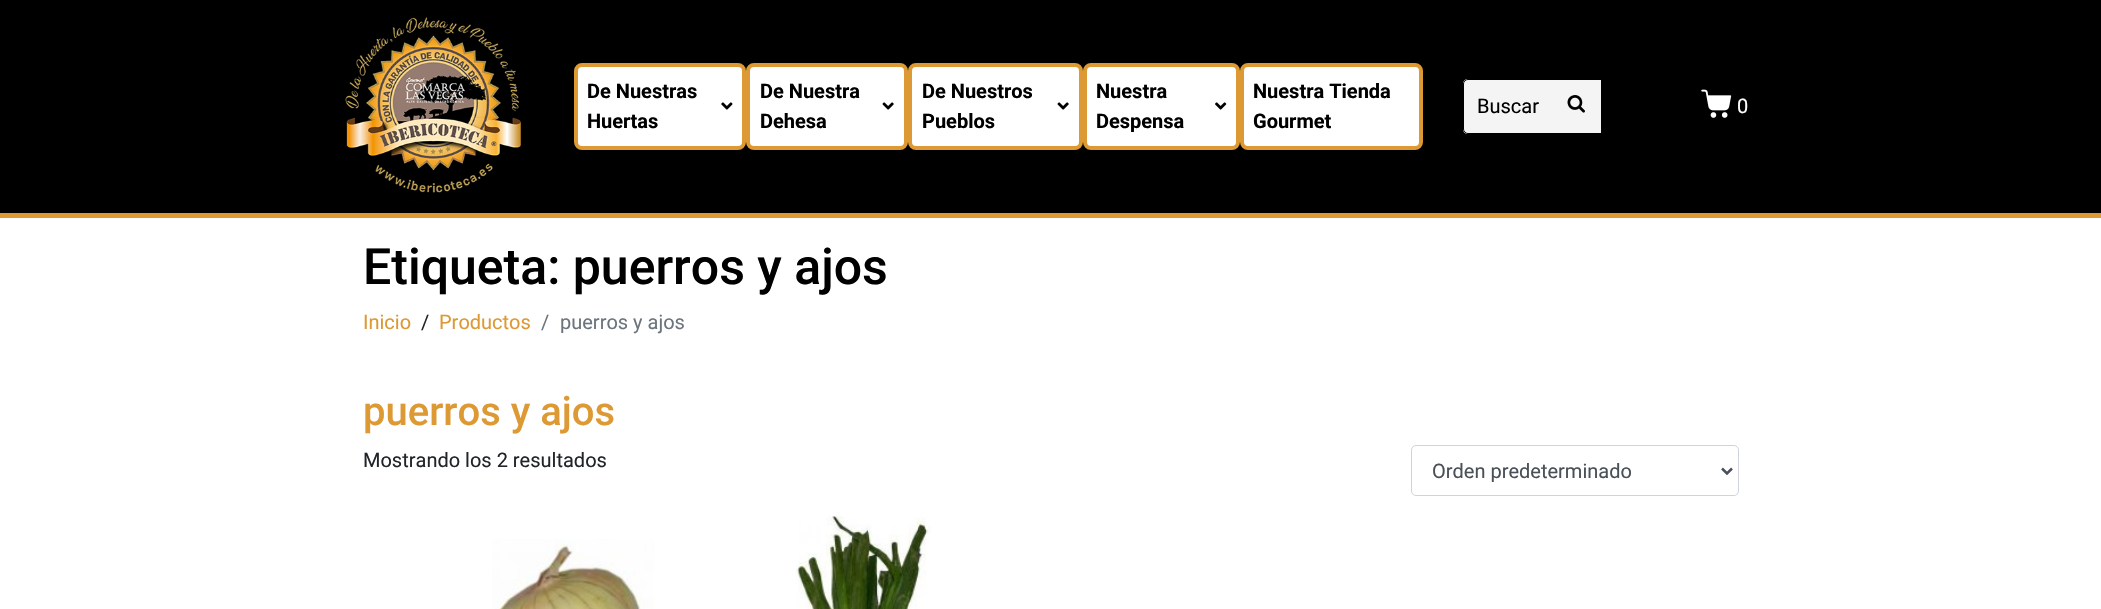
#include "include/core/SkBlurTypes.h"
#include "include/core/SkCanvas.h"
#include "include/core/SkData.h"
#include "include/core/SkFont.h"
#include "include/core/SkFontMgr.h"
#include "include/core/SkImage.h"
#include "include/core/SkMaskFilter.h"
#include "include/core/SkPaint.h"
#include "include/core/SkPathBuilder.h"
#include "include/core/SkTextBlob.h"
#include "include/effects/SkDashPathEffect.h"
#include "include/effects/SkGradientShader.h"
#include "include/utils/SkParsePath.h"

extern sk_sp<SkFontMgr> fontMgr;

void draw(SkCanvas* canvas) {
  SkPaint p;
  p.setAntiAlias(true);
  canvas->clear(SK_ColorWHITE);
  p.setColor(SK_ColorBLACK);
  canvas->drawRect(SkRect::MakeLTRB(0, 0, 2101, 213), p);
  p.setColor(SkColorSetRGB(221, 153, 51));
  canvas->drawRect(SkRect::MakeLTRB(0, 213, 2101, 218), p);
  canvas->drawImageRect(SkImages::DeferredFromEncodedData(SkData::MakeFromFileName("images/1.png")), SkRect::MakeLTRB(337, 10, 521, 203), SkSamplingOptions());
  p.setColor(SK_ColorWHITE);
  canvas->drawRoundRect(SkRect::MakeLTRB(576, 65, 744, 148), 6, 6, p);
  p.setStyle(SkPaint::kStroke_Style);
  p.setStrokeWidth(4);
  p.setColor(SkColorSetRGB(221, 153, 51));
  canvas->drawRoundRect(SkRect::MakeLTRB(576, 65, 744, 148), 6, 6, p);
  canvas->drawImageRect(SkImages::DeferredFromEncodedData(SkData::MakeFromFileName("images/2.png")), SkRect::MakeLTRB(721, 102, 733, 110), SkSamplingOptions());
  p.setStyle(SkPaint::kFill_Style);
  p.setColor(SK_ColorWHITE);
  canvas->drawRoundRect(SkRect::MakeLTRB(748, 65, 906, 148), 6, 6, p);
  p.setStyle(SkPaint::kStroke_Style);
  p.setColor(SkColorSetRGB(221, 153, 51));
  canvas->drawRoundRect(SkRect::MakeLTRB(748, 65, 906, 148), 6, 6, p);
  canvas->drawImageRect(SkImages::DeferredFromEncodedData(SkData::MakeFromFileName("images/3.png")), SkRect::MakeLTRB(882, 102, 894, 110), SkSamplingOptions());
  p.setStyle(SkPaint::kFill_Style);
  p.setColor(SK_ColorWHITE);
  canvas->drawRoundRect(SkRect::MakeLTRB(910, 65, 1081, 148), 6, 6, p);
  p.setStyle(SkPaint::kStroke_Style);
  p.setColor(SkColorSetRGB(221, 153, 51));
  canvas->drawRoundRect(SkRect::MakeLTRB(910, 65, 1081, 148), 6, 6, p);
  canvas->drawImageRect(SkImages::DeferredFromEncodedData(SkData::MakeFromFileName("images/3.png")), SkRect::MakeLTRB(1057, 102, 1069, 110), SkSamplingOptions());
  p.setStyle(SkPaint::kFill_Style);
  p.setColor(SK_ColorWHITE);
  canvas->drawRoundRect(SkRect::MakeLTRB(1085, 65, 1238, 148), 6, 6, p);
  p.setStyle(SkPaint::kStroke_Style);
  p.setColor(SkColorSetRGB(221, 153, 51));
  canvas->drawRoundRect(SkRect::MakeLTRB(1085, 65, 1238, 148), 6, 6, p);
  canvas->drawImageRect(SkImages::DeferredFromEncodedData(SkData::MakeFromFileName("images/4.png")), SkRect::MakeLTRB(1215, 102, 1227, 110), SkSamplingOptions());
  p.setStyle(SkPaint::kFill_Style);
  p.setColor(SK_ColorWHITE);
  canvas->drawRoundRect(SkRect::MakeLTRB(1242, 65, 1421, 148), 6, 6, p);
  p.setStyle(SkPaint::kStroke_Style);
  p.setColor(SkColorSetRGB(221, 153, 51));
  canvas->drawRoundRect(SkRect::MakeLTRB(1242, 65, 1421, 148), 6, 6, p);
  p.setStyle(SkPaint::kFill_Style);
  p.setColor(SkColorSetRGB(244, 244, 244));
  canvas->drawPath(SkPathBuilder().moveTo(1468, 79).lineTo(1601, 79).lineTo(1601, 134).lineTo(1468, 134).cubicTo(1465, 134, 1463, 132, 1463, 129).lineTo(1463, 84).cubicTo(1463, 81, 1465, 79, 1468, 79).close().detach(), p);
  canvas->save();
  canvas->clipRect(SkRect::MakeLTRB(1463, 79, 1601, 134));
  p.setStyle(SkPaint::kStroke_Style);
  p.setStrokeWidth(1);
  p.setColor(SK_ColorBLACK);
  canvas->drawRoundRect(SkRect::MakeLTRB(1463.5f, 79.5f, 1649.5f, 133.5f), 4.5f, 4.5f, p);
  canvas->restore();
  canvas->drawImageRect(SkImages::DeferredFromEncodedData(SkData::MakeFromFileName("images/5.png")), SkRect::MakeLTRB(1567, 95, 1585, 113), SkSamplingOptions());
  canvas->drawImageRect(SkImages::DeferredFromEncodedData(SkData::MakeFromFileName("images/6.png")), SkRect::MakeLTRB(1701, 89, 1732, 118), SkSamplingOptions());
  p.setColor(SkColorSetRGB(206, 212, 218));
  canvas->drawRoundRect(SkRect::MakeLTRB(1411.5f, 445.5f, 1738.5f, 495.5f), 4.5f, 4.5f, p);
  p.setStrokeWidth(2.5f);
  p.setColor(SkColorSetRGB(73, 80, 87));
  canvas->drawPath(SkPathBuilder().moveTo(1722, 468.5f).lineTo(1727, 473.5f).lineTo(1732, 468.5f).detach(), p);
  canvas->drawImageRect(SkImages::DeferredFromEncodedData(SkData::MakeFromFileName("images/7.png")), SkRect::MakeLTRB(492, 539, 654, 609), SkSamplingOptions());
  canvas->drawImageRect(SkImages::DeferredFromEncodedData(SkData::MakeFromFileName("images/8.png")), SkRect::MakeLTRB(796, 516, 931, 609), SkSamplingOptions());
  SkFont font1(fontMgr->matchFamilyStyle("Roboto", SkFontStyle::Bold()), 20);
  font1.setSubpixel(true);
  p.setStyle(SkPaint::kFill_Style);
  p.setColor(SK_ColorBLACK);
  canvas->drawString("De Nuestras", 587, 98, font1, p);
  canvas->drawString("Huertas", 587, 128, font1, p);
  canvas->drawString("De Nuestra", 760, 98, font1, p);
  canvas->drawString("Dehesa", 760, 128, font1, p);
  canvas->drawString("De Nuestros", 922, 98, font1, p);
  canvas->drawString("Pueblos", 922, 128, font1, p);
  canvas->drawString("Nuestra", 1096, 98, font1, p);
  canvas->drawString("Despensa", 1096, 128, font1, p);
  canvas->drawString("Nuestra Tienda", 1253, 98, font1, p);
  canvas->drawString("Gourmet", 1253, 128, font1, p);
  SkFont font2(fontMgr->matchFamilyStyle("Roboto", SkFontStyle::Normal()), 20);
  font2.setSubpixel(true);
  canvas->drawString("Buscar", 1477, 113, font2, p);
  p.setColor(SK_ColorWHITE);
  canvas->drawString("0", 1737, 113, font2, p);
  SkFont font3(fontMgr->matchFamilyStyle("Roboto", SkFontStyle(500, SkFontStyle::kNormal_Width, SkFontStyle::kUpright_Slant)), 50);
  font3.setSubpixel(true);
  p.setColor(SK_ColorBLACK);
  canvas->drawString("Etiqueta: puerros y ajos", 363, 284, font3, p);
  p.setColor(SkColorSetRGB(221, 153, 51));
  canvas->drawString("Inicio", 363, 329, font2, p);
  p.setColor(SkColorSetRGB(33, 37, 41));
  canvas->drawString("/", 421, 329, font2, p);
  p.setColor(SkColorSetRGB(221, 153, 51));
  canvas->drawString("Productos", 439, 329, font2, p);
  p.setColor(SkColorSetRGB(108, 117, 125));
  canvas->drawString("/", 541, 329, font2, p);
  canvas->drawString("puerros y ajos", 560, 329, font2, p);
  SkFont font4(fontMgr->matchFamilyStyle("Roboto", SkFontStyle(500, SkFontStyle::kNormal_Width, SkFontStyle::kUpright_Slant)), 40);
  font4.setSubpixel(true);
  p.setColor(SkColorSetRGB(221, 153, 51));
  canvas->drawString("puerros y ajos", 363, 425, font4, p);
  p.setColor(SkColorSetRGB(33, 37, 41));
  canvas->drawString("Mostrando los 2 resultados", 363, 467, font2, p);
  p.setColor(SkColorSetRGB(73, 80, 87));
  canvas->drawString("Orden predeterminado", 1432, 478, font2, p);
}
